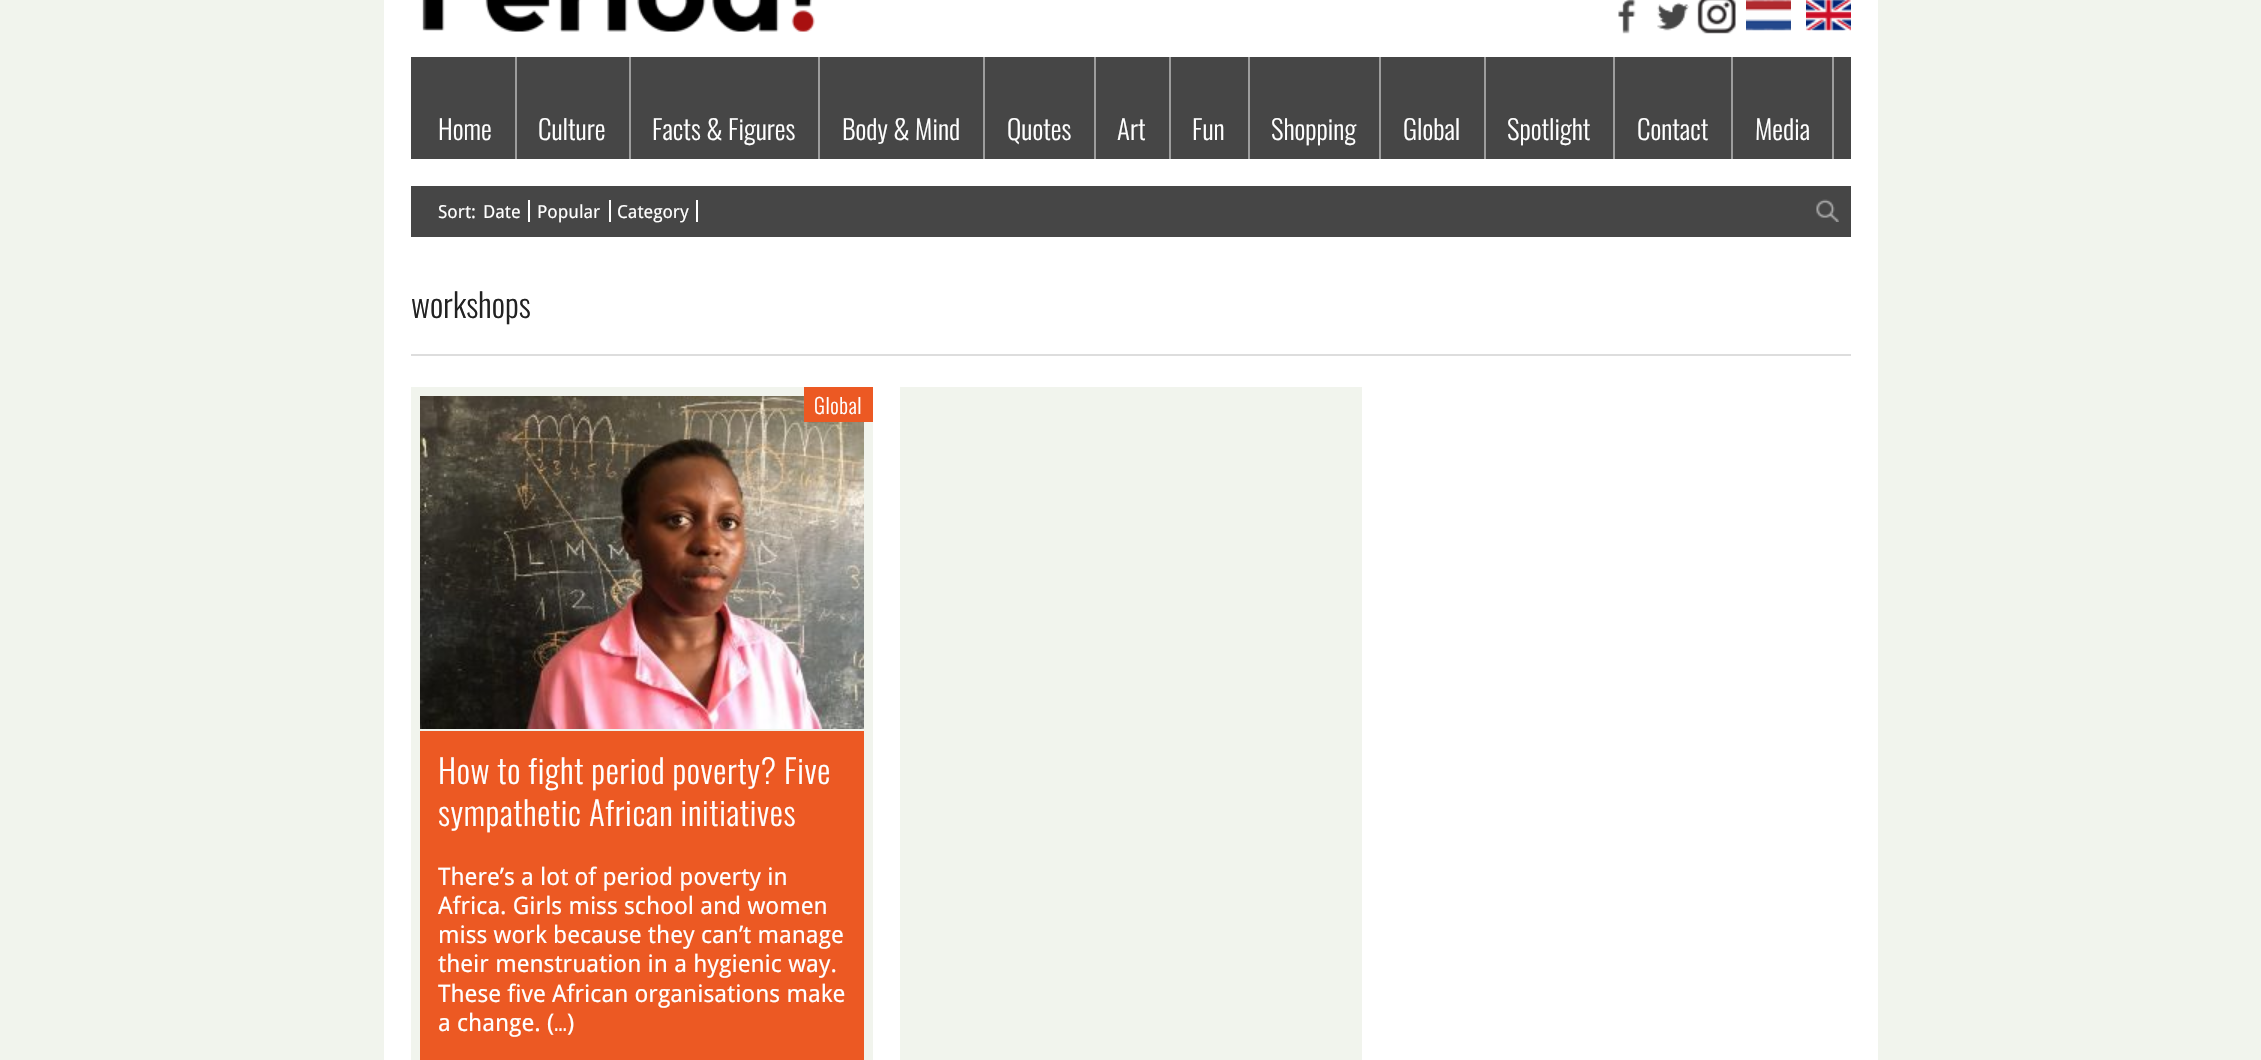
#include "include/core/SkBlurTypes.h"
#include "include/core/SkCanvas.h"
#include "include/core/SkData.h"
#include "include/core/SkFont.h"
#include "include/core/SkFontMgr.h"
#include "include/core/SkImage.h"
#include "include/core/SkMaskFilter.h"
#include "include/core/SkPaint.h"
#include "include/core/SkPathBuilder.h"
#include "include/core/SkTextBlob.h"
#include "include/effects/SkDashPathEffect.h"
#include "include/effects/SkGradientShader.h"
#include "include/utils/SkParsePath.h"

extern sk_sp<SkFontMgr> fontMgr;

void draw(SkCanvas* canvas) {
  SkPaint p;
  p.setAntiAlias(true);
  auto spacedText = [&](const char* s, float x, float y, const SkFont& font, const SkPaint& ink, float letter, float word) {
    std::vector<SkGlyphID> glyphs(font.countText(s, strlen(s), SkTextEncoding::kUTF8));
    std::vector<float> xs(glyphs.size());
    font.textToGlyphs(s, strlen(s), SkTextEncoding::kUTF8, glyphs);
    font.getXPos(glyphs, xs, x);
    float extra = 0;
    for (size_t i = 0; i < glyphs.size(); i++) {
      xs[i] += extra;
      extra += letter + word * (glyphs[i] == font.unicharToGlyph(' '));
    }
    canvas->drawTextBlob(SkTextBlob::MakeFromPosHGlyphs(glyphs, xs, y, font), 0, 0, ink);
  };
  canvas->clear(SkColorSetRGB(241, 244, 237));
  p.setColor(SK_ColorWHITE);
  canvas->drawRect(SkRect::MakeLTRB(384, 0, 1878, 1060), p);
  canvas->drawImageRect(SkImages::DeferredFromEncodedData(SkData::MakeFromFileName("images/1.png")), SkRect::MakeLTRB(1618, 0, 1636, 34), SkSamplingOptions());
  canvas->drawImageRect(SkImages::DeferredFromEncodedData(SkData::MakeFromFileName("images/2.png")), SkRect::MakeLTRB(1657, 2, 1690, 31), SkSamplingOptions());
  canvas->drawImageRect(SkImages::DeferredFromEncodedData(SkData::MakeFromFileName("images/3.png")), SkRect::MakeLTRB(1697, 0, 1736, 34), SkSamplingOptions());
  canvas->drawImageRect(SkImages::DeferredFromEncodedData(SkData::MakeFromFileName("images/4.png")), SkRect::MakeLTRB(1746, 0, 1791, 31), SkSamplingOptions());
  canvas->drawImageRect(SkImages::DeferredFromEncodedData(SkData::MakeFromFileName("images/5.png")), SkRect::MakeLTRB(1806, 0, 1851, 31), SkSamplingOptions());
  canvas->drawImageRect(SkImages::DeferredFromEncodedData(SkData::MakeFromFileName("images/6.png")), SkRect::MakeLTRB(422, 0, 815, 32), SkSamplingOptions());
  p.setColor(SkColorSetRGB(70, 70, 70));
  canvas->drawRect(SkRect::MakeLTRB(411, 57, 1851, 159), p);
  p.setColor(SkColorSetRGB(157, 157, 157));
  canvas->drawRect(SkRect::MakeLTRB(515, 57, 517, 159), p);
  canvas->drawRect(SkRect::MakeLTRB(629, 57, 631, 159), p);
  canvas->drawRect(SkRect::MakeLTRB(818, 57, 820, 159), p);
  canvas->drawRect(SkRect::MakeLTRB(983, 57, 985, 159), p);
  canvas->drawRect(SkRect::MakeLTRB(1094, 57, 1096, 159), p);
  canvas->drawRect(SkRect::MakeLTRB(1169, 57, 1171, 159), p);
  canvas->drawRect(SkRect::MakeLTRB(1248, 57, 1250, 159), p);
  canvas->drawRect(SkRect::MakeLTRB(1379, 57, 1381, 159), p);
  canvas->drawRect(SkRect::MakeLTRB(1484, 57, 1486, 159), p);
  canvas->drawRect(SkRect::MakeLTRB(1613, 57, 1615, 159), p);
  canvas->drawRect(SkRect::MakeLTRB(1731, 57, 1733, 159), p);
  canvas->drawRect(SkRect::MakeLTRB(1832, 57, 1834, 159), p);
  p.setColor(SkColorSetRGB(70, 70, 70));
  canvas->drawRect(SkRect::MakeLTRB(411, 186, 1851, 237), p);
  p.setColor(SK_ColorWHITE);
  canvas->drawRect(SkRect::MakeLTRB(528, 200, 530, 222), p);
  canvas->drawRect(SkRect::MakeLTRB(609, 200, 611, 222), p);
  canvas->drawRect(SkRect::MakeLTRB(696, 200, 698, 222), p);
  canvas->drawImageRect(SkImages::DeferredFromEncodedData(SkData::MakeFromFileName("images/7.png")), SkRect::MakeLTRB(1816, 199, 1839, 222), SkSamplingOptions());
  p.setColor(SkColorSetRGB(221, 221, 221));
  canvas->drawRect(SkRect::MakeLTRB(411, 354, 1851, 356), p);
  p.setColor(SkColorSetRGB(241, 244, 237));
  canvas->drawRect(SkRect::MakeLTRB(411, 387, 873, 1060), p);
  canvas->drawImageRect(SkImages::DeferredFromEncodedData(SkData::MakeFromFileName("images/8.png")), SkRect::MakeLTRB(420, 396, 864, 729), SkSamplingOptions());
  p.setColor(SkColorSetRGB(236, 89, 35));
  canvas->drawRect(SkRect::MakeLTRB(804, 387, 873, 422), p);
  canvas->drawRect(SkRect::MakeLTRB(420, 731, 864, 1060), p);
  p.setColor(SkColorSetRGB(241, 244, 237));
  canvas->drawRect(SkRect::MakeLTRB(900, 387, 1362, 1060), p);
  SkFont font1(fontMgr->matchFamilyStyle("Oswald", SkFontStyle(300, SkFontStyle::kNormal_Width, SkFontStyle::kUpright_Slant)), 27);
  font1.setSubpixel(true);
  p.setColor(SK_ColorWHITE);
  canvas->drawString("Home", 438, 140, font1, p);
  canvas->drawString("Culture", 538, 140, font1, p);
  canvas->drawString("Facts & Figures", 652, 140, font1, p);
  canvas->drawString("Body & Mind", 842, 140, font1, p);
  canvas->drawString("Quotes", 1007, 140, font1, p);
  canvas->drawString("Art", 1117, 140, font1, p);
  canvas->drawString("Fun", 1192, 140, font1, p);
  canvas->drawString("Shopping", 1271, 140, font1, p);
  canvas->drawString("Global", 1403, 140, font1, p);
  canvas->drawString("Spotlight", 1507, 140, font1, p);
  canvas->drawString("Contact", 1637, 140, font1, p);
  canvas->drawString("Media", 1755, 140, font1, p);
  SkFont font2(fontMgr->matchFamilyStyle("Droid Sans", SkFontStyle::Normal()), 18);
  font2.setSubpixel(true);
  canvas->drawString("Sort:", 438, 218, font2, p);
  canvas->drawString("Date", 483, 218, font2, p);
  canvas->drawString("Popular", 537, 218, font2, p);
  canvas->drawString("Category", 617, 218, font2, p);
  SkFont font3(fontMgr->matchFamilyStyle("Oswald", SkFontStyle(300, SkFontStyle::kNormal_Width, SkFontStyle::kUpright_Slant)), 33);
  font3.setSubpixel(true);
  p.setColor(SkColorSetRGB(34, 34, 34));
  canvas->drawString("workshops", 411, 318, font3, p);
  SkFont font4(fontMgr->matchFamilyStyle("Oswald", SkFontStyle(300, SkFontStyle::kNormal_Width, SkFontStyle::kUpright_Slant)), 21);
  font4.setSubpixel(true);
  p.setColor(SK_ColorWHITE);
  spacedText("Global", 814, 414, font4, p, 0.6f, 0);
  spacedText("How to fight period poverty? Five", 438, 784, font3, p, 0.6f, 0);
  spacedText("sympathetic African initiatives", 438, 826, font3, p, 0.6f, 0);
  SkFont font5(fontMgr->matchFamilyStyle("Droid Sans", SkFontStyle::Normal()), 24);
  font5.setSubpixel(true);
  canvas->drawString("There’s a lot of period poverty in", 438, 885, font5, p);
  canvas->drawString("Africa. Girls miss school and women", 438, 914, font5, p);
  canvas->drawString("miss work because they can’t manage", 438, 943, font5, p);
  canvas->drawString("their menstruation in a hygienic way.", 438, 972, font5, p);
  canvas->drawString("These five African organisations make", 438, 1002, font5, p);
  canvas->drawString("a change. (", 438, 1031, font5, p);
  SkFont font6(fontMgr->matchFamilyStyle("Oswald", SkFontStyle(300, SkFontStyle::kNormal_Width, SkFontStyle::kUpright_Slant)), 24);
  font6.setSubpixel(true);
  canvas->drawString("…", 554, 1031, font6, p);
  canvas->drawString(")", 567, 1031, font5, p);
}
